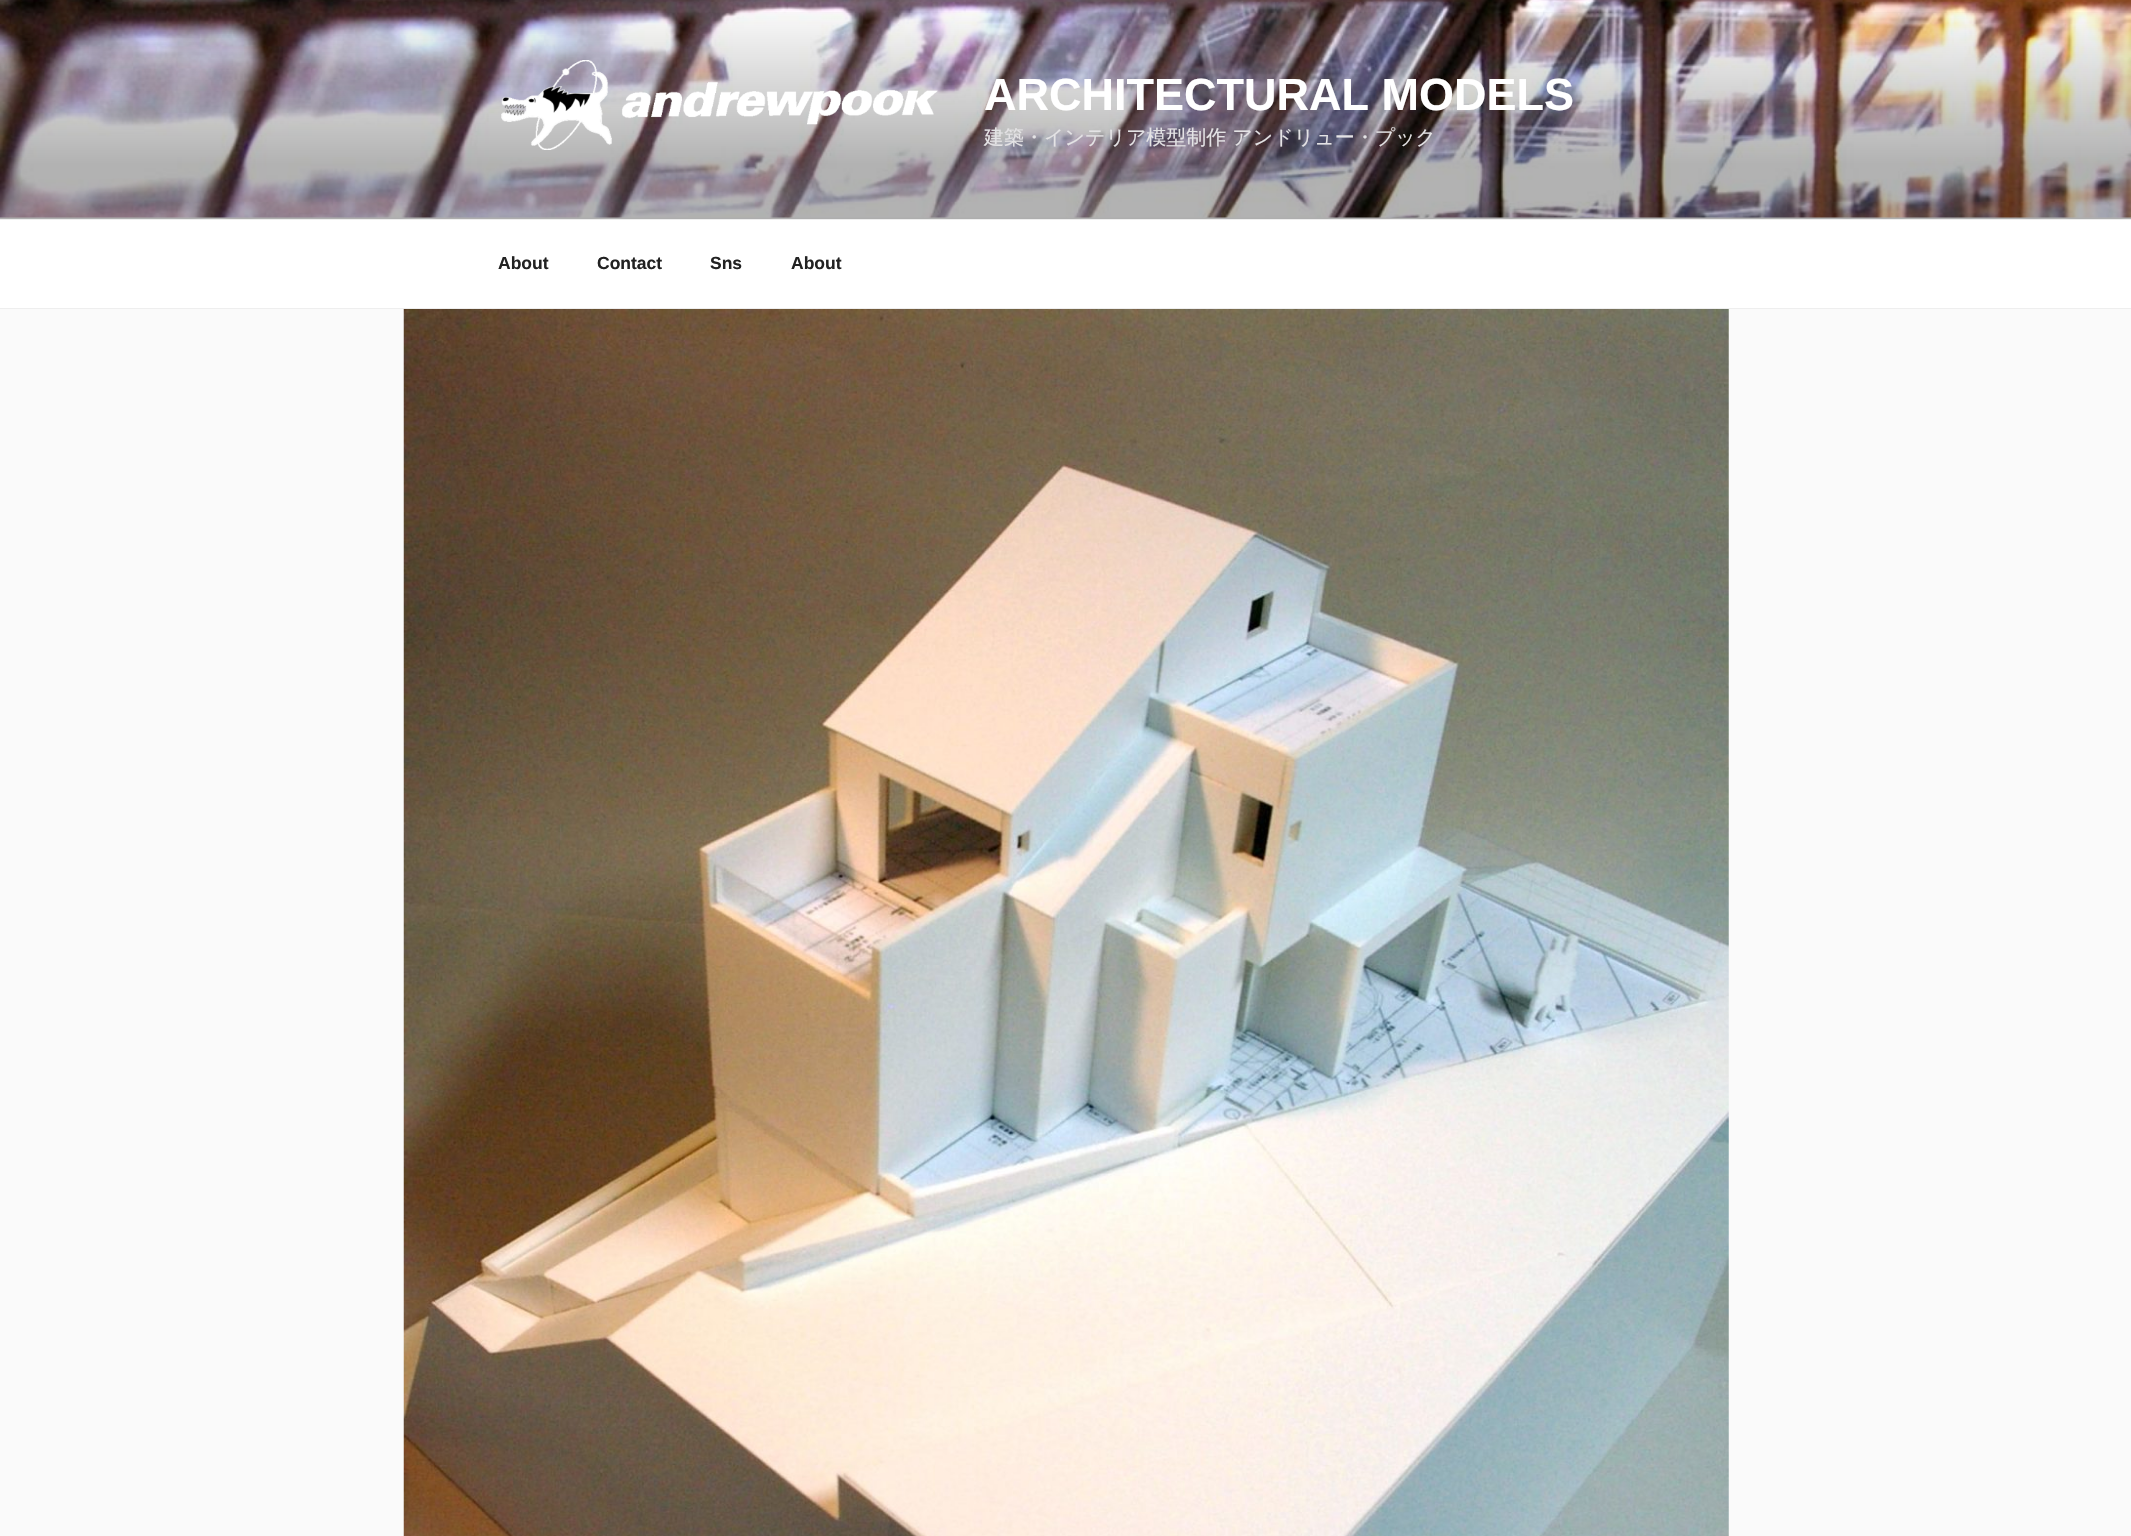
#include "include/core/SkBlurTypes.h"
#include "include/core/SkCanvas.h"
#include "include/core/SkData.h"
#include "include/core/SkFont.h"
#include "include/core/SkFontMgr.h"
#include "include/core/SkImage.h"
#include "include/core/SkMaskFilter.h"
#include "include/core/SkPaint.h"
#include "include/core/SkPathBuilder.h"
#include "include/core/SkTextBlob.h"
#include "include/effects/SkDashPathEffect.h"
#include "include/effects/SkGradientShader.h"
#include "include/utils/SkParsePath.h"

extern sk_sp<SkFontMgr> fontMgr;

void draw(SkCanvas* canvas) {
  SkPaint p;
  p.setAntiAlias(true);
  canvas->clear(SkColorSetRGB(250, 250, 250));
  canvas->drawImageRect(SkImages::DeferredFromEncodedData(SkData::MakeFromFileName("images/1.png")), SkRect::MakeLTRB(0, 0, 2131, 218), SkSamplingOptions());
  {
    const SkColor colors[] = {SkColorSetARGB(0, 0, 0, 0), SkColorSetARGB(77, 0, 0, 0), SkColorSetARGB(77, 0, 0, 0)};
    const float stops[] = {0, 0.75f, 1};
    const SkPoint ends[] = {{1066, 0}, {1066, 219}};
    p.setShader(SkGradientShader::MakeLinear(ends, colors, stops, 3, SkTileMode::kClamp));
    p.setAlpha(255);
  }
  canvas->drawRect(SkRect::MakeLTRB(0, 12, 2131, 219), p);
  canvas->drawImageRect(SkImages::DeferredFromEncodedData(SkData::MakeFromFileName("images/2.png")), SkRect::MakeLTRB(501, 60, 938, 150), SkSamplingOptions());
  p.setShader(nullptr);
  p.setColor(SK_ColorWHITE);
  canvas->drawRect(SkRect::MakeLTRB(0, 220, 2131, 308), p);
  p.setColor(SkColorSetRGB(238, 238, 238));
  canvas->drawRect(SkRect::MakeLTRB(0, 219, 2131, 220), p);
  canvas->drawRect(SkRect::MakeLTRB(0, 308, 2131, 309), p);
  canvas->drawImageRect(SkImages::DeferredFromEncodedData(SkData::MakeFromFileName("images/3.png")), SkRect::MakeLTRB(403, 309, 1729, 1536), SkSamplingOptions());
  SkFont font1(fontMgr->matchFamilyStyle("Liberation Sans", SkFontStyle::Bold()), 45);
  font1.setSubpixel(true);
  p.setColor(SK_ColorWHITE);
  canvas->drawString("ARCHITECTURAL MODELS", 984, 110, font1, p);
  SkFont font2(fontMgr->matchFamilyStyle("WenQuanYi Zen Hei", SkFontStyle(500, SkFontStyle::kNormal_Width, SkFontStyle::kUpright_Slant)), 20);
  font2.setSubpixel(true);
  p.setColor(SkColorSetRGB(228, 227, 229));
  canvas->drawString("建築・インテリア模型制作 アンドリュー・プック", 984, 144, font2, p);
  SkFont font3(fontMgr->matchFamilyStyle("Liberation Sans", SkFontStyle::Bold()), 17.5f);
  font3.setSubpixel(true);
  p.setColor(SkColorSetRGB(34, 34, 34));
  canvas->drawString("About", 498, 269, font3, p);
  canvas->drawString("Contact", 597, 269, font3, p);
  canvas->drawString("Sns", 710, 269, font3, p);
  canvas->drawString("About", 791, 269, font3, p);
}
